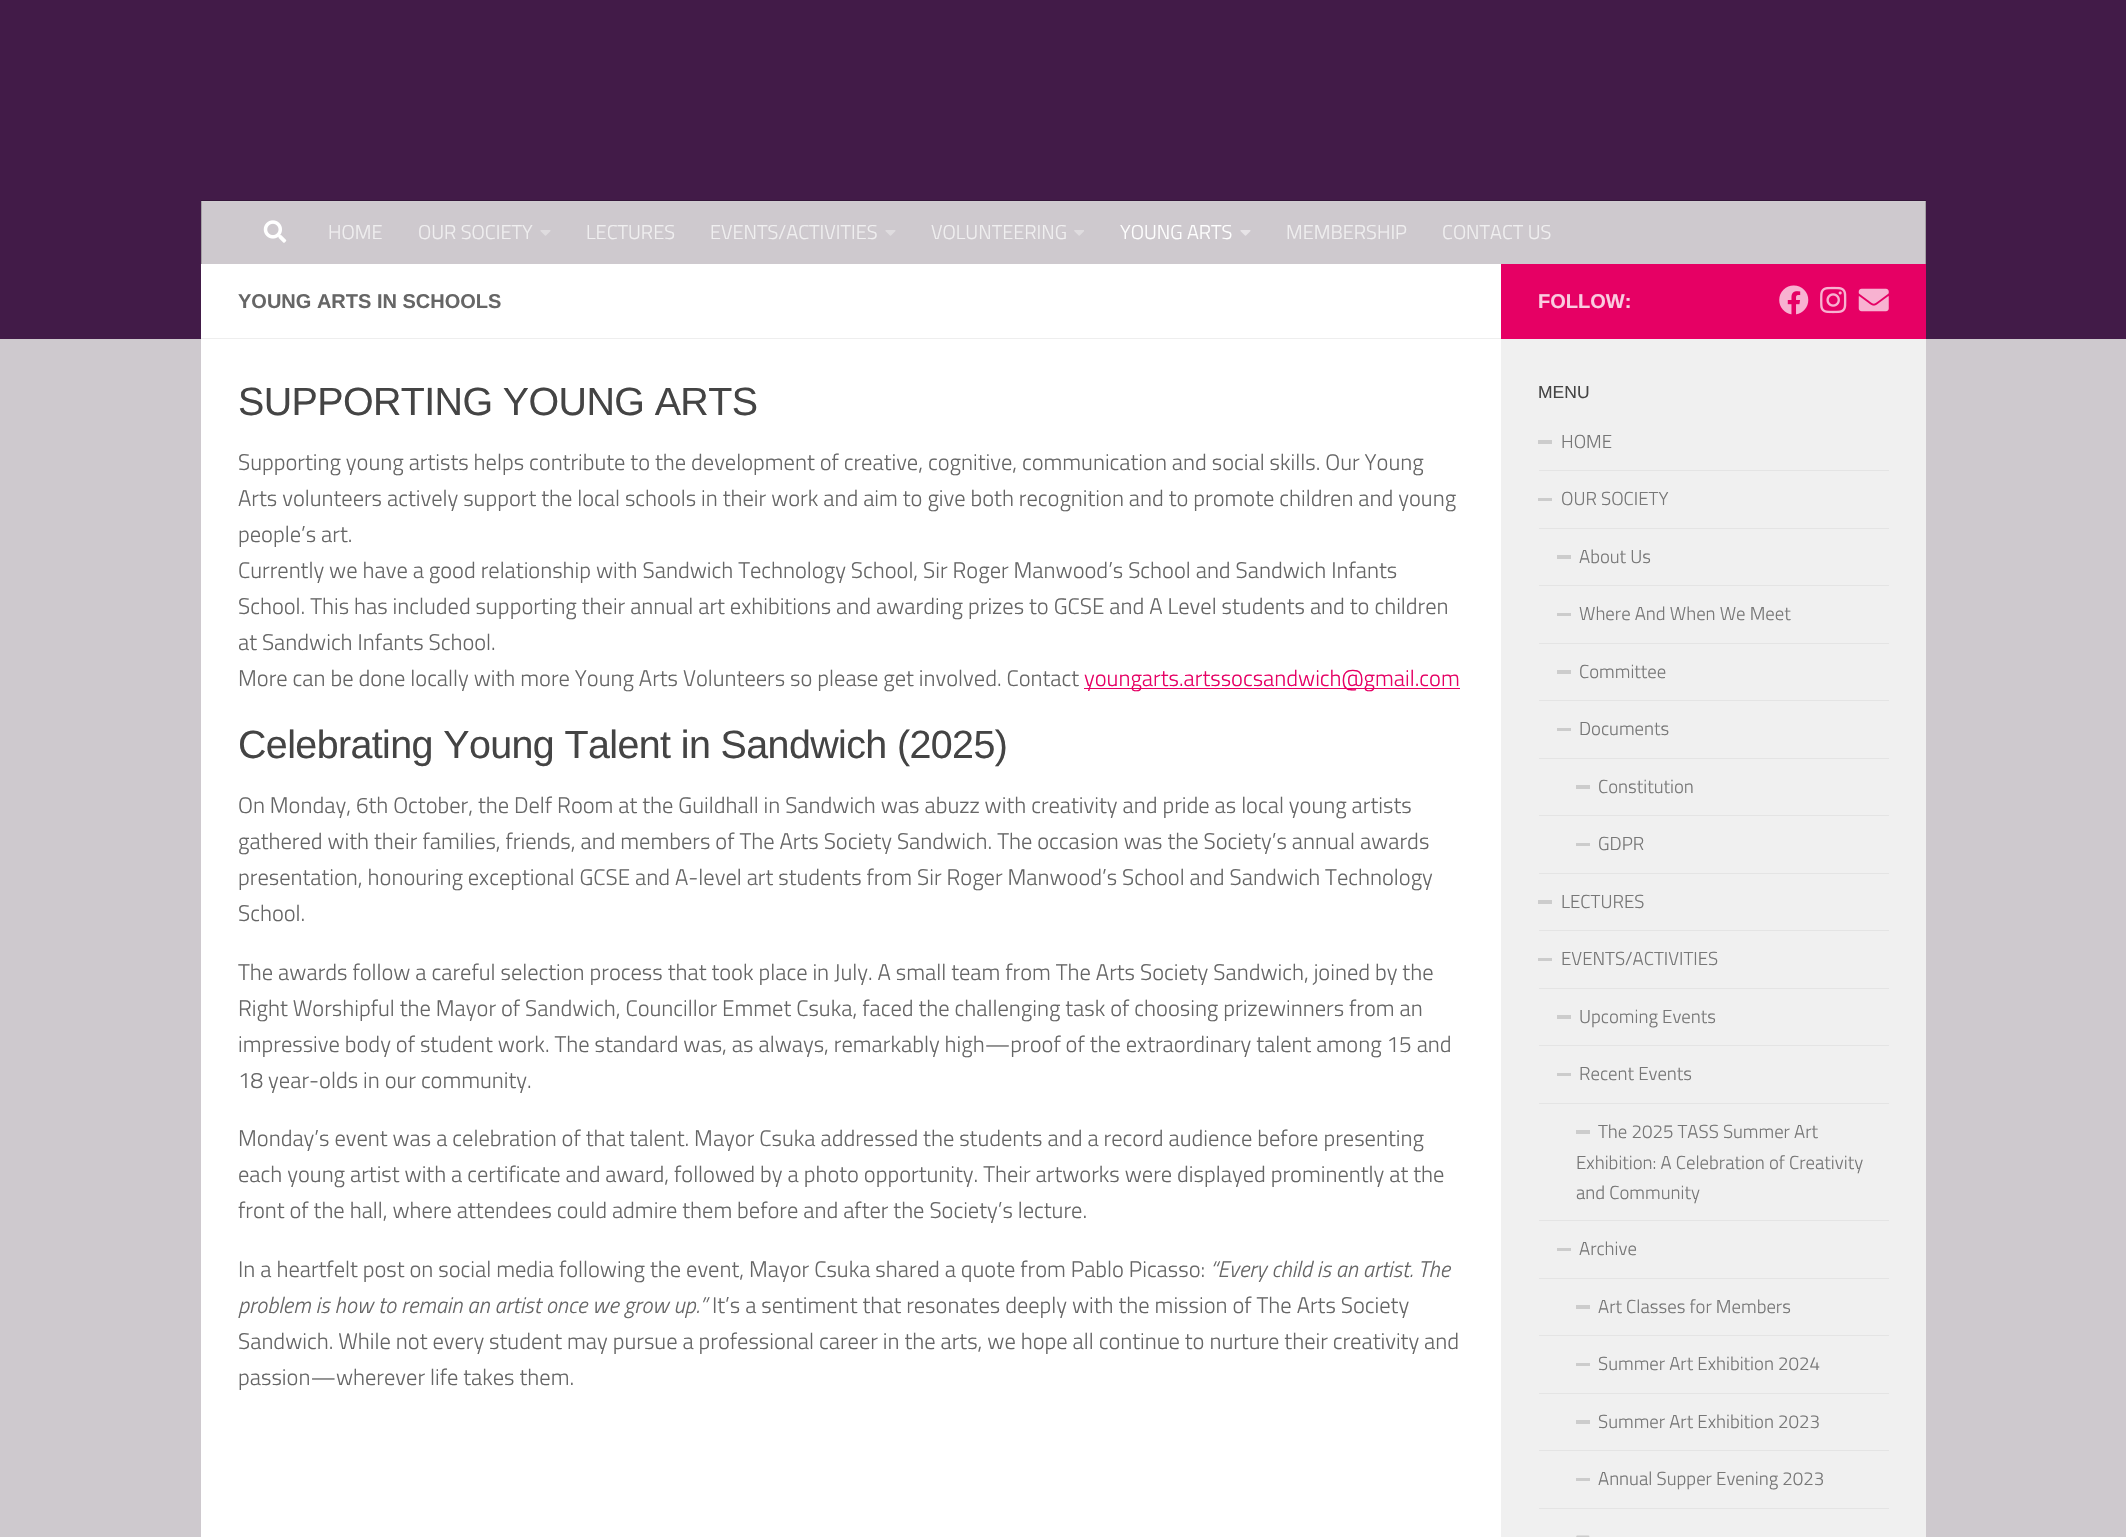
#include "include/core/SkBlurTypes.h"
#include "include/core/SkCanvas.h"
#include "include/core/SkData.h"
#include "include/core/SkFont.h"
#include "include/core/SkFontMgr.h"
#include "include/core/SkImage.h"
#include "include/core/SkMaskFilter.h"
#include "include/core/SkPaint.h"
#include "include/core/SkPathBuilder.h"
#include "include/core/SkTextBlob.h"
#include "include/effects/SkDashPathEffect.h"
#include "include/effects/SkGradientShader.h"
#include "include/utils/SkParsePath.h"

extern sk_sp<SkFontMgr> fontMgr;

void draw(SkCanvas* canvas) {
  SkPaint p;
  p.setAntiAlias(true);
  auto spacedText = [&](const char* s, float x, float y, const SkFont& font, const SkPaint& ink, float letter, float word) {
    std::vector<SkGlyphID> glyphs(font.countText(s, strlen(s), SkTextEncoding::kUTF8));
    std::vector<float> xs(glyphs.size());
    font.textToGlyphs(s, strlen(s), SkTextEncoding::kUTF8, glyphs);
    font.getXPos(glyphs, xs, x);
    float extra = 0;
    for (size_t i = 0; i < glyphs.size(); i++) {
      xs[i] += extra;
      extra += letter + word * (glyphs[i] == font.unicharToGlyph(' '));
    }
    canvas->drawTextBlob(SkTextBlob::MakeFromPosHGlyphs(glyphs, xs, y, font), 0, 0, ink);
  };
  canvas->clear(SkColorSetRGB(206, 201, 206));
  p.setColor(SkColorSetRGB(66, 27, 72));
  canvas->drawRect(SkRect::MakeLTRB(0, 0, 2126, 339), p);
  p.setColor(SkColorSetRGB(53, 22, 58));
  canvas->drawPath(SkPathBuilder().moveTo(201, 200).lineTo(201, 263).lineTo(201, 201).lineTo(1926, 201).lineTo(1926, 200).close().detach(), p);
  p.setColor(SkColorSetRGB(206, 201, 206));
  canvas->drawRect(SkRect::MakeLTRB(202, 202, 1925, 264), p);
  p.setColor(SkColorSetRGB(208, 204, 208));
  canvas->drawRect(SkRect::MakeLTRB(201, 201, 1926, 202), p);
  p.setColor(SkColorSetRGB(165, 161, 165));
  canvas->drawRect(SkRect::MakeLTRB(1925, 201, 1926, 264), p);
  p.setColor(SkColorSetRGB(170, 166, 170));
  canvas->drawRect(SkRect::MakeLTRB(1925, 201, 1926, 202), p);
  p.setColor(SkColorSetRGB(165, 161, 165));
  canvas->drawRect(SkRect::MakeLTRB(201, 201, 202, 264), p);
  p.setColor(SkColorSetRGB(170, 166, 170));
  canvas->drawRect(SkRect::MakeLTRB(201, 201, 202, 202), p);
  canvas->drawImageRect(SkImages::DeferredFromEncodedData(SkData::MakeFromFileName("images/1.png")), SkRect::MakeLTRB(263, 220, 287, 243), SkSamplingOptions());
  canvas->drawImageRect(SkImages::DeferredFromEncodedData(SkData::MakeFromFileName("images/2.png")), SkRect::MakeLTRB(540, 230, 551, 236), SkSamplingOptions());
  canvas->drawImageRect(SkImages::DeferredFromEncodedData(SkData::MakeFromFileName("images/2.png")), SkRect::MakeLTRB(885, 230, 896, 236), SkSamplingOptions());
  canvas->drawImageRect(SkImages::DeferredFromEncodedData(SkData::MakeFromFileName("images/3.png")), SkRect::MakeLTRB(1074, 230, 1084, 236), SkSamplingOptions());
  canvas->drawImageRect(SkImages::DeferredFromEncodedData(SkData::MakeFromFileName("images/4.png")), SkRect::MakeLTRB(1240, 230, 1251, 236), SkSamplingOptions());
  p.setColor(SK_ColorWHITE);
  canvas->drawRect(SkRect::MakeLTRB(201, 264, 1501, 1537), p);
  p.setColor(SkColorSetRGB(238, 238, 238));
  canvas->drawRect(SkRect::MakeLTRB(201, 338, 1501, 339), p);
  p.setColor(SkColorSetRGB(230, 0, 100));
  canvas->drawRect(SkRect::MakeLTRB(1084, 688, 1460, 689), p);
  canvas->drawRect(SkRect::MakeLTRB(1501, 264, 1926, 339), p);
  canvas->drawImageRect(SkImages::DeferredFromEncodedData(SkData::MakeFromFileName("images/5.png")), SkRect::MakeLTRB(1779, 285, 1809, 315), SkSamplingOptions());
  canvas->drawImageRect(SkImages::DeferredFromEncodedData(SkData::MakeFromFileName("images/6.png")), SkRect::MakeLTRB(1820, 286, 1847, 314), SkSamplingOptions());
  canvas->drawImageRect(SkImages::DeferredFromEncodedData(SkData::MakeFromFileName("images/7.png")), SkRect::MakeLTRB(1858, 288, 1889, 312), SkSamplingOptions());
  p.setColor(SkColorSetRGB(240, 240, 240));
  canvas->drawRect(SkRect::MakeLTRB(1501, 339, 1926, 1537), p);
  p.setColor(SkColorSetRGB(228, 228, 228));
  canvas->drawRect(SkRect::MakeLTRB(1539, 470, 1889, 471), p);
  p.setColor(SkColorSetRGB(204, 204, 204));
  canvas->drawRect(SkRect::MakeLTRB(1538, 440, 1552, 444), p);
  p.setColor(SkColorSetRGB(228, 228, 228));
  canvas->drawRect(SkRect::MakeLTRB(1539, 528, 1889, 529), p);
  p.setColor(SkColorSetRGB(204, 204, 204));
  canvas->drawRect(SkRect::MakeLTRB(1538, 498, 1552, 501), p);
  p.setColor(SkColorSetRGB(228, 228, 228));
  canvas->drawRect(SkRect::MakeLTRB(1539, 585, 1889, 586), p);
  p.setColor(SkColorSetRGB(204, 204, 204));
  canvas->drawRect(SkRect::MakeLTRB(1557, 555, 1571, 559), p);
  p.setColor(SkColorSetRGB(228, 228, 228));
  canvas->drawRect(SkRect::MakeLTRB(1539, 643, 1889, 644), p);
  p.setColor(SkColorSetRGB(204, 204, 204));
  canvas->drawRect(SkRect::MakeLTRB(1557, 613, 1571, 616), p);
  p.setColor(SkColorSetRGB(228, 228, 228));
  canvas->drawRect(SkRect::MakeLTRB(1539, 700, 1889, 701), p);
  p.setColor(SkColorSetRGB(204, 204, 204));
  canvas->drawRect(SkRect::MakeLTRB(1557, 670, 1571, 674), p);
  p.setColor(SkColorSetRGB(228, 228, 228));
  canvas->drawRect(SkRect::MakeLTRB(1539, 758, 1889, 759), p);
  p.setColor(SkColorSetRGB(204, 204, 204));
  canvas->drawRect(SkRect::MakeLTRB(1557, 728, 1571, 731), p);
  p.setColor(SkColorSetRGB(228, 228, 228));
  canvas->drawRect(SkRect::MakeLTRB(1539, 815, 1889, 816), p);
  p.setColor(SkColorSetRGB(204, 204, 204));
  canvas->drawRect(SkRect::MakeLTRB(1576, 785, 1590, 789), p);
  p.setColor(SkColorSetRGB(228, 228, 228));
  canvas->drawRect(SkRect::MakeLTRB(1539, 873, 1889, 874), p);
  p.setColor(SkColorSetRGB(204, 204, 204));
  canvas->drawRect(SkRect::MakeLTRB(1576, 843, 1590, 846), p);
  p.setColor(SkColorSetRGB(228, 228, 228));
  canvas->drawRect(SkRect::MakeLTRB(1539, 930, 1889, 931), p);
  p.setColor(SkColorSetRGB(204, 204, 204));
  canvas->drawRect(SkRect::MakeLTRB(1538, 900, 1552, 904), p);
  p.setColor(SkColorSetRGB(228, 228, 228));
  canvas->drawRect(SkRect::MakeLTRB(1539, 988, 1889, 989), p);
  p.setColor(SkColorSetRGB(204, 204, 204));
  canvas->drawRect(SkRect::MakeLTRB(1538, 958, 1552, 961), p);
  p.setColor(SkColorSetRGB(228, 228, 228));
  canvas->drawRect(SkRect::MakeLTRB(1539, 1045, 1889, 1046), p);
  p.setColor(SkColorSetRGB(204, 204, 204));
  canvas->drawRect(SkRect::MakeLTRB(1557, 1015, 1571, 1019), p);
  p.setColor(SkColorSetRGB(228, 228, 228));
  canvas->drawRect(SkRect::MakeLTRB(1539, 1103, 1889, 1104), p);
  p.setColor(SkColorSetRGB(204, 204, 204));
  canvas->drawRect(SkRect::MakeLTRB(1557, 1073, 1571, 1076), p);
  p.setColor(SkColorSetRGB(228, 228, 228));
  canvas->drawRect(SkRect::MakeLTRB(1539, 1220, 1889, 1221), p);
  p.setColor(SkColorSetRGB(204, 204, 204));
  canvas->drawRect(SkRect::MakeLTRB(1576, 1130, 1590, 1134), p);
  p.setColor(SkColorSetRGB(228, 228, 228));
  canvas->drawRect(SkRect::MakeLTRB(1539, 1278, 1889, 1279), p);
  p.setColor(SkColorSetRGB(204, 204, 204));
  canvas->drawRect(SkRect::MakeLTRB(1557, 1248, 1571, 1251), p);
  p.setColor(SkColorSetRGB(228, 228, 228));
  canvas->drawRect(SkRect::MakeLTRB(1539, 1335, 1889, 1336), p);
  p.setColor(SkColorSetRGB(204, 204, 204));
  canvas->drawRect(SkRect::MakeLTRB(1576, 1305, 1590, 1309), p);
  p.setColor(SkColorSetRGB(228, 228, 228));
  canvas->drawRect(SkRect::MakeLTRB(1539, 1393, 1889, 1394), p);
  p.setColor(SkColorSetRGB(204, 204, 204));
  canvas->drawRect(SkRect::MakeLTRB(1576, 1363, 1590, 1366), p);
  p.setColor(SkColorSetRGB(228, 228, 228));
  canvas->drawRect(SkRect::MakeLTRB(1539, 1450, 1889, 1451), p);
  p.setColor(SkColorSetRGB(204, 204, 204));
  canvas->drawRect(SkRect::MakeLTRB(1576, 1420, 1590, 1424), p);
  p.setColor(SkColorSetRGB(228, 228, 228));
  canvas->drawRect(SkRect::MakeLTRB(1539, 1508, 1889, 1509), p);
  p.setColor(SkColorSetRGB(204, 204, 204));
  canvas->drawRect(SkRect::MakeLTRB(1576, 1478, 1590, 1481), p);
  canvas->drawImageRect(SkImages::DeferredFromEncodedData(SkData::MakeFromFileName("images/8.png")), SkRect::MakeLTRB(1576, 1535, 1590, 1537), SkSamplingOptions());
  SkFont font1(fontMgr->matchFamilyStyle("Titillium", SkFontStyle(300, SkFontStyle::kNormal_Width, SkFontStyle::kUpright_Slant)), 20);
  font1.setSubpixel(true);
  p.setColor(SkColorSetRGB(240, 239, 240));
  canvas->drawString("HOME", 328, 239, font1, p);
  canvas->drawString("OUR SOCIETY", 418, 239, font1, p);
  canvas->drawString("LECTURES", 586, 239, font1, p);
  canvas->drawString("EVENTS/ACTIVITIES", 710, 239, font1, p);
  canvas->drawString("VOLUNTEERING", 931, 239, font1, p);
  p.setColor(SK_ColorWHITE);
  canvas->drawString("YOUNG ARTS", 1120, 239, font1, p);
  p.setColor(SkColorSetRGB(240, 239, 240));
  canvas->drawString("MEMBERSHIP", 1286, 239, font1, p);
  canvas->drawString("CONTACT US", 1442, 239, font1, p);
  SkFont font2(fontMgr->matchFamilyStyle("Liberation Sans", SkFontStyle::Bold()), 20);
  font2.setSubpixel(true);
  p.setColor(SkColorSetRGB(102, 102, 102));
  canvas->drawString("YOUNG ARTS IN SCHOOLS", 238, 308, font2, p);
  SkFont font3(fontMgr->matchFamilyStyle("Liberation Sans", SkFontStyle::Normal()), 39.4f);
  font3.setSubpixel(true);
  p.setColor(SkColorSetRGB(68, 68, 68));
  spacedText("SUPPORTING YOUNG ARTS", 238, 415, font3, p, -0.6f, 0);
  SkFont font4(fontMgr->matchFamilyStyle("Titillium", SkFontStyle(300, SkFontStyle::kNormal_Width, SkFontStyle::kUpright_Slant)), 22.5f);
  font4.setSubpixel(true);
  p.setColor(SkColorSetRGB(102, 102, 102));
  canvas->drawString("Supporting young artists helps contribute to the development of creative, cognitive, communication and social skills. Our Young", 238, 470, font4, p);
  canvas->drawString("Arts volunteers actively support the local schools in their work and aim to give both recognition and to promote children and young", 238, 506, font4, p);
  canvas->drawString("people’s art.", 238, 542, font4, p);
  canvas->drawString("Currently we have a good relationship with Sandwich Technology School, Sir Roger Manwood’s School and Sandwich Infants", 238, 578, font4, p);
  canvas->drawString("School. This has included supporting their annual art exhibitions and awarding prizes to GCSE and A Level students and to children", 238, 614, font4, p);
  canvas->drawString("at Sandwich Infants School.", 238, 650, font4, p);
  canvas->drawString("More can be done locally with more Young Arts Volunteers so please get involved. Contact", 238, 686, font4, p);
  p.setColor(SkColorSetRGB(230, 0, 100));
  canvas->drawString("youngarts.artssocsandwich@gmail.com", 1084, 686, font4, p);
  p.setColor(SkColorSetRGB(68, 68, 68));
  spacedText("Celebrating Young Talent in Sandwich (2025)", 238, 758, font3, p, -0.6f, 0);
  p.setColor(SkColorSetRGB(102, 102, 102));
  canvas->drawString("On Monday, 6th October, the Delf Room at the Guildhall in Sandwich was abuzz with creativity and pride as local young artists", 238, 813, font4, p);
  canvas->drawString("gathered with their families, friends, and members of The Arts Society Sandwich. The occasion was the Society’s annual awards", 238, 849, font4, p);
  canvas->drawString("presentation, honouring exceptional GCSE and A-level art students from Sir Roger Manwood’s School and Sandwich Technology", 238, 885, font4, p);
  canvas->drawString("School.", 238, 921, font4, p);
  canvas->drawString("The awards follow a careful selection process that took place in July. A small team from The Arts Society Sandwich, joined by the", 238, 980, font4, p);
  canvas->drawString("Right Worshipful the Mayor of Sandwich, Councillor Emmet Csuka, faced the challenging task of choosing prizewinners from an", 238, 1016, font4, p);
  canvas->drawString("impressive body of student work. The standard was, as always, remarkably high—proof of the extraordinary talent among 15 and", 238, 1052, font4, p);
  canvas->drawString("18 year-olds in our community.", 238, 1088, font4, p);
  canvas->drawString("Monday’s event was a celebration of that talent. Mayor Csuka addressed the students and a record audience before presenting", 238, 1146, font4, p);
  canvas->drawString("each young artist with a certificate and award, followed by a photo opportunity. Their artworks were displayed prominently at the", 238, 1182, font4, p);
  canvas->drawString("front of the hall, where attendees could admire them before and after the Society’s lecture.", 238, 1218, font4, p);
  canvas->drawString("In a heartfelt post on social media following the event, Mayor Csuka shared a quote from Pablo Picasso:", 238, 1277, font4, p);
  SkFont font5(fontMgr->matchFamilyStyle("Titillium", SkFontStyle(300, SkFontStyle::kNormal_Width, SkFontStyle::kItalic_Slant)), 22.5f);
  font5.setSubpixel(true);
  canvas->drawString("“Every child is an artist. The", 1210, 1277, font5, p);
  canvas->drawString("problem is how to remain an artist once we grow up.”", 238, 1313, font5, p);
  canvas->drawString("It’s a sentiment that resonates deeply with the mission of The Arts Society", 712, 1313, font4, p);
  canvas->drawString("Sandwich. While not every student may pursue a professional career in the arts, we hope all continue to nurture their creativity and", 238, 1349, font4, p);
  canvas->drawString("passion—wherever life takes them.", 238, 1385, font4, p);
  p.setColor(SkColorSetRGB(250, 204, 224));
  canvas->drawString("FOLLOW:", 1538, 308, font2, p);
  SkFont font6(fontMgr->matchFamilyStyle("Liberation Sans", SkFontStyle::Normal()), 17.5f);
  font6.setSubpixel(true);
  p.setColor(SkColorSetRGB(68, 68, 68));
  canvas->drawString("MENU", 1538, 398, font6, p);
  SkFont font7(fontMgr->matchFamilyStyle("Titillium", SkFontStyle(300, SkFontStyle::kNormal_Width, SkFontStyle::kUpright_Slant)), 18.75f);
  font7.setSubpixel(true);
  p.setColor(SkColorSetRGB(119, 119, 119));
  canvas->drawString("HOME", 1561, 448, font7, p);
  canvas->drawString("OUR SOCIETY", 1561, 505, font7, p);
  canvas->drawString("About Us", 1579, 563, font7, p);
  canvas->drawString("Where And When We Meet", 1579, 620, font7, p);
  canvas->drawString("Committee", 1579, 678, font7, p);
  canvas->drawString("Documents", 1579, 735, font7, p);
  canvas->drawString("Constitution", 1598, 793, font7, p);
  canvas->drawString("GDPR", 1598, 850, font7, p);
  canvas->drawString("LECTURES", 1561, 908, font7, p);
  canvas->drawString("EVENTS/ACTIVITIES", 1561, 965, font7, p);
  canvas->drawString("Upcoming Events", 1579, 1023, font7, p);
  canvas->drawString("Recent Events", 1579, 1080, font7, p);
  canvas->drawString("The 2025 TASS Summer Art", 1598, 1138, font7, p);
  canvas->drawString("Exhibition: A Celebration of Creativity", 1576, 1169, font7, p);
  canvas->drawString("and Community", 1576, 1199, font7, p);
  canvas->drawString("Archive", 1579, 1255, font7, p);
  canvas->drawString("Art Classes for Members", 1598, 1313, font7, p);
  canvas->drawString("Summer Art Exhibition 2024", 1598, 1370, font7, p);
  canvas->drawString("Summer Art Exhibition 2023", 1598, 1428, font7, p);
  canvas->drawString("Annual Supper Evening 2023", 1598, 1485, font7, p);
}
